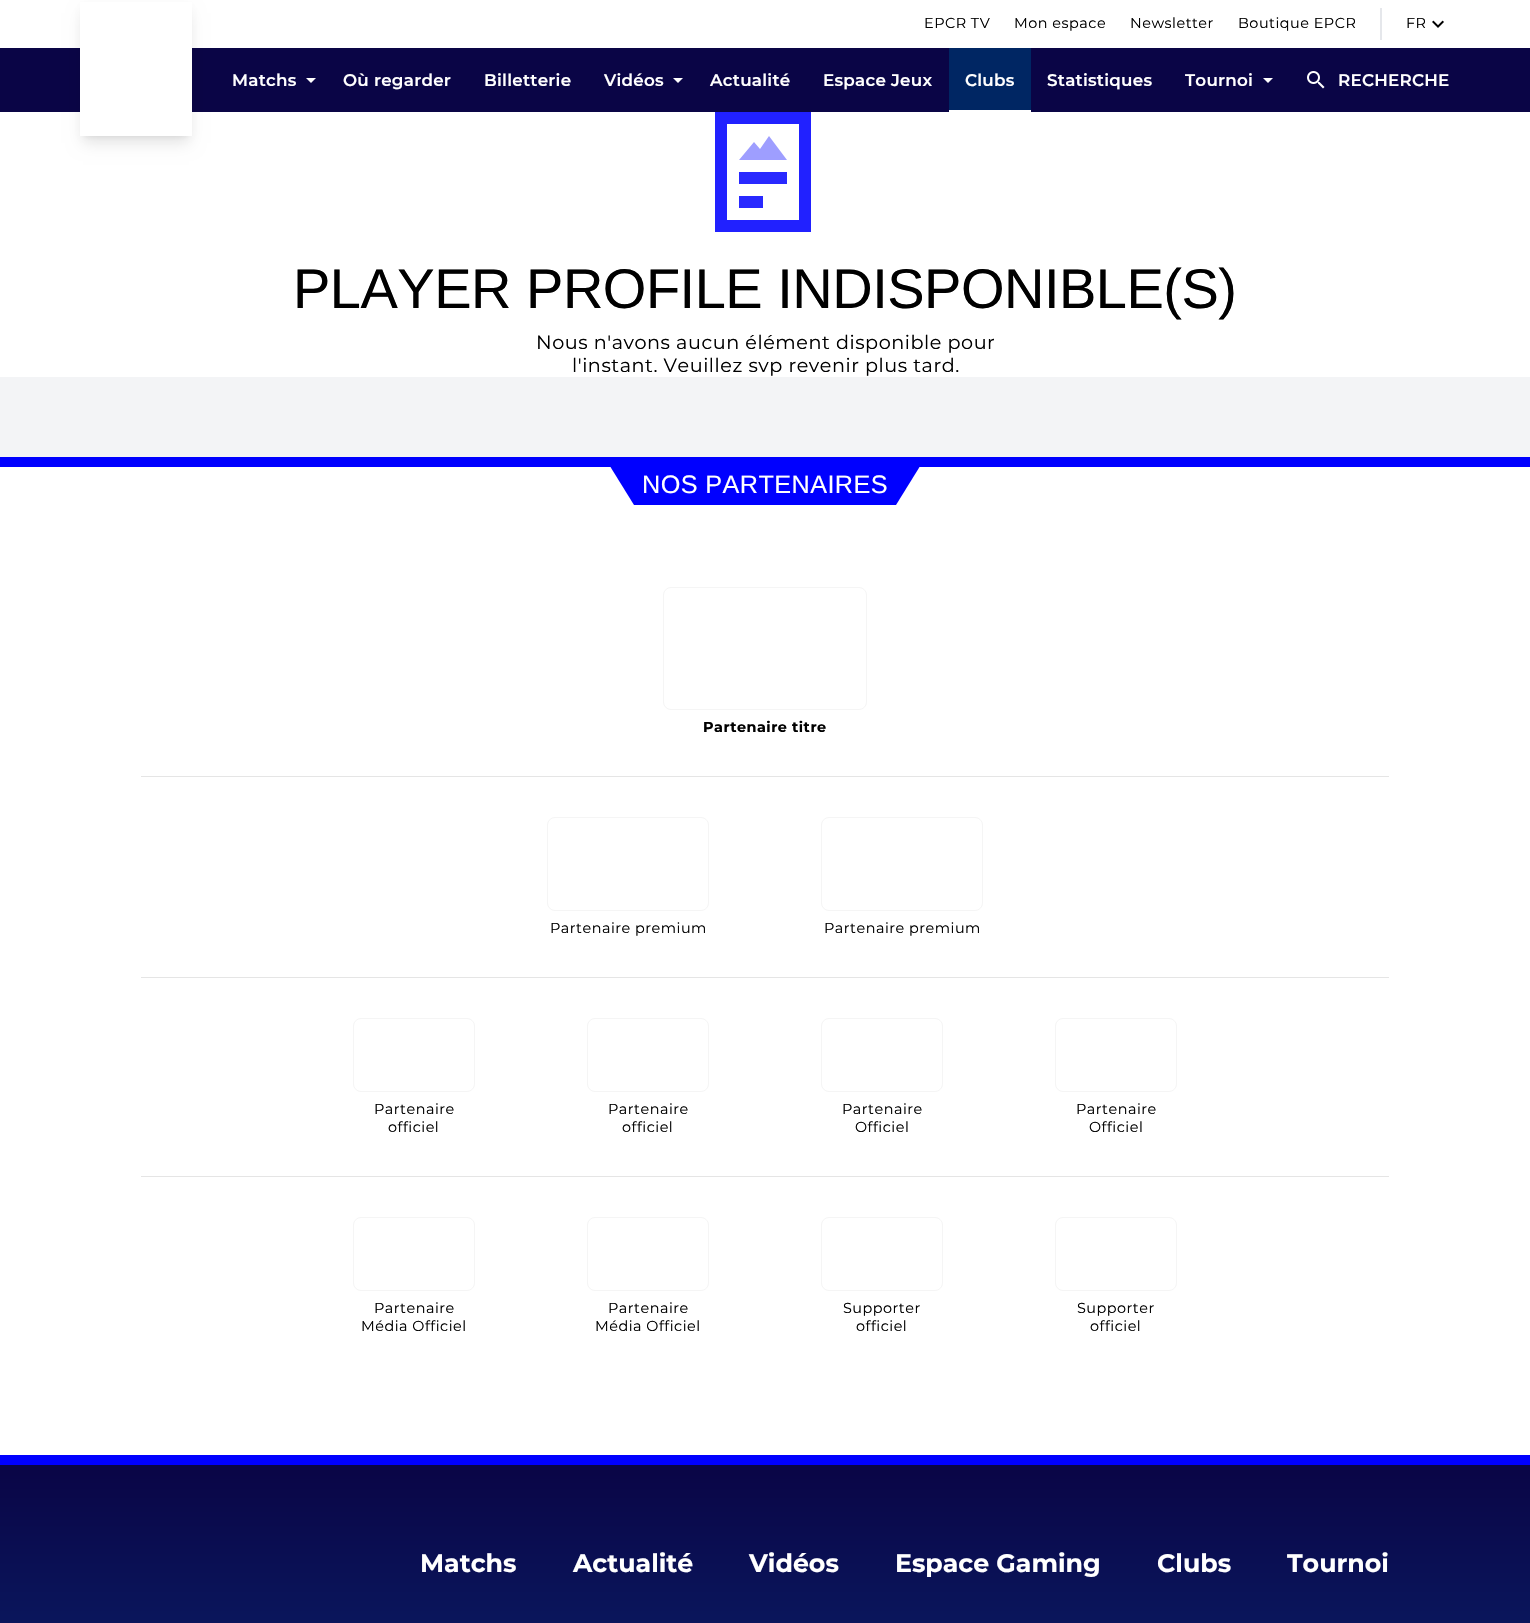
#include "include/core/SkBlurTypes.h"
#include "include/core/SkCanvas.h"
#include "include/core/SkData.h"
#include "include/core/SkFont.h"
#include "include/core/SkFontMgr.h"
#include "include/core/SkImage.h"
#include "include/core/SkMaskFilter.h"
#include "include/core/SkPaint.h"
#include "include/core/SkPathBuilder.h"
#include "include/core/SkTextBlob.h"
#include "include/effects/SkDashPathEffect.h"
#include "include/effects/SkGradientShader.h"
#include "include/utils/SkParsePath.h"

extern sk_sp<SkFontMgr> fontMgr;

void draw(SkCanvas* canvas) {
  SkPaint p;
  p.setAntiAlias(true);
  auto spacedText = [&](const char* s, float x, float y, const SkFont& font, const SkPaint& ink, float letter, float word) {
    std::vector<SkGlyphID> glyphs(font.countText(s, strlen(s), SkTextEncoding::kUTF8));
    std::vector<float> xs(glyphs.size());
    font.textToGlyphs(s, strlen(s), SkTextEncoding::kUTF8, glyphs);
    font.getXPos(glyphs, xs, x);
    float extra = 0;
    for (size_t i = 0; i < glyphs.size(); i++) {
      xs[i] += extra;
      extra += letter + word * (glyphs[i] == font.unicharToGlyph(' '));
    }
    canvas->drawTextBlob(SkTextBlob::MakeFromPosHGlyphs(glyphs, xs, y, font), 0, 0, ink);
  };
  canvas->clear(SK_ColorWHITE);
  p.setColor(SkColorSetRGB(229, 231, 235));
  canvas->drawRect(SkRect::MakeLTRB(1380, 8, 1382, 40), p);
  canvas->drawImageRect(SkImages::DeferredFromEncodedData(SkData::MakeFromFileName("images/1.png")), SkRect::MakeLTRB(1432, 20, 1444, 28), SkSamplingOptions());
  p.setColor(SkColorSetRGB(10, 5, 70));
  canvas->drawRect(SkRect::MakeLTRB(0, 48, 1530, 112), p);
  p.setColor(SkColorSetARGB(26, 0, 0, 0));
  p.setMaskFilter(SkMaskFilter::MakeBlur(kNormal_SkBlurStyle, 3));
  canvas->drawRect(SkRect::MakeLTRB(84, 8, 188, 136), p);
  p.setMaskFilter(nullptr);
  p.setMaskFilter(SkMaskFilter::MakeBlur(kNormal_SkBlurStyle, 7.5f));
  canvas->drawRect(SkRect::MakeLTRB(83, 13, 189, 143), p);
  p.setMaskFilter(nullptr);
  p.setColor(SK_ColorWHITE);
  canvas->drawRect(SkRect::MakeLTRB(80, 2, 192, 136), p);
  canvas->drawPath(SkPathBuilder().moveTo(306, 78).lineTo(316, 78).lineTo(311, 83).close().detach(), p);
  canvas->drawPath(SkPathBuilder().moveTo(673, 78).lineTo(683, 78).lineTo(678, 83).close().detach(), p);
  p.setColor(SkColorSetRGB(0, 38, 99));
  canvas->drawRect(SkRect::MakeLTRB(949, 48, 1031, 110), p);
  p.setColor(SK_ColorWHITE);
  canvas->drawRect(SkRect::MakeLTRB(949, 110, 1031, 112), p);
  canvas->drawPath(SkPathBuilder().moveTo(1263, 78).lineTo(1273, 78).lineTo(1268, 83).close().detach(), p);
  canvas->drawImageRect(SkImages::DeferredFromEncodedData(SkData::MakeFromFileName("images/2.png")), SkRect::MakeLTRB(1307, 71, 1325, 89), SkSamplingOptions());
  p.setColor(SkColorSetRGB(33, 33, 255));
  canvas->drawPath(SkPathBuilder(SkPathFillType::kEvenOdd).moveTo(799, 124).lineTo(727, 124).lineTo(727, 220).lineTo(799, 220).close().moveTo(715, 112).lineTo(715, 232).lineTo(811, 232).lineTo(811, 112).close().detach(), p);
  p.setColor(SkColorSetRGB(41, 41, 255));
  canvas->drawRect(SkRect::MakeLTRB(739, 196, 763, 208), p);
  canvas->drawRect(SkRect::MakeLTRB(739, 172, 787, 184), p);
  p.setColor(SkColorSetRGB(158, 158, 255));
  canvas->drawPath(SkPathBuilder(SkPathFillType::kEvenOdd).moveTo(787, 160).lineTo(769, 136).lineTo(760, 149).lineTo(754, 142).lineTo(739, 160).close().detach(), p);
  p.setColor(SkColorSetRGB(243, 244, 246));
  canvas->drawRect(SkRect::MakeLTRB(0, 377, 1530, 457), p);
  p.setColor(SkColorSetRGB(0, 0, 255));
  canvas->drawRect(SkRect::MakeLTRB(0, 457, 1530, 467), p);
  canvas->drawPath(SkPathBuilder().moveTo(608, 463).lineTo(922, 463).lineTo(896, 505).lineTo(634, 505).close().detach(), p);
  p.setColor(SkColorSetRGB(229, 229, 229));
  canvas->drawRect(SkRect::MakeLTRB(141, 776, 1389, 777), p);
  p.setStyle(SkPaint::kStroke_Style);
  p.setStrokeWidth(1);
  p.setColor(SkColorSetRGB(245, 245, 245));
  canvas->drawRoundRect(SkRect::MakeLTRB(663.5f, 587.5f, 866.5f, 709.5f), 7.5f, 7.5f, p);
  p.setStyle(SkPaint::kFill_Style);
  p.setColor(SkColorSetRGB(229, 229, 229));
  canvas->drawRect(SkRect::MakeLTRB(141, 977, 1389, 978), p);
  p.setStyle(SkPaint::kStroke_Style);
  p.setColor(SkColorSetRGB(245, 245, 245));
  canvas->drawRoundRect(SkRect::MakeLTRB(547.5f, 817.5f, 708.5f, 910.5f), 7.5f, 7.5f, p);
  canvas->drawRoundRect(SkRect::MakeLTRB(821.5f, 817.5f, 982.5f, 910.5f), 7.5f, 7.5f, p);
  p.setStyle(SkPaint::kFill_Style);
  p.setColor(SkColorSetRGB(229, 229, 229));
  canvas->drawRect(SkRect::MakeLTRB(141, 1176, 1389, 1177), p);
  p.setStyle(SkPaint::kStroke_Style);
  p.setColor(SkColorSetRGB(245, 245, 245));
  canvas->drawRoundRect(SkRect::MakeLTRB(353.5f, 1018.5f, 474.5f, 1091.5f), 7.5f, 7.5f, p);
  canvas->drawRoundRect(SkRect::MakeLTRB(587.5f, 1018.5f, 708.5f, 1091.5f), 7.5f, 7.5f, p);
  canvas->drawRoundRect(SkRect::MakeLTRB(821.5f, 1018.5f, 942.5f, 1091.5f), 7.5f, 7.5f, p);
  canvas->drawRoundRect(SkRect::MakeLTRB(1055.5f, 1018.5f, 1176.5f, 1091.5f), 7.5f, 7.5f, p);
  canvas->drawRoundRect(SkRect::MakeLTRB(353.5f, 1217.5f, 474.5f, 1290.5f), 7.5f, 7.5f, p);
  canvas->drawRoundRect(SkRect::MakeLTRB(587.5f, 1217.5f, 708.5f, 1290.5f), 7.5f, 7.5f, p);
  canvas->drawRoundRect(SkRect::MakeLTRB(821.5f, 1217.5f, 942.5f, 1290.5f), 7.5f, 7.5f, p);
  canvas->drawRoundRect(SkRect::MakeLTRB(1055.5f, 1217.5f, 1176.5f, 1290.5f), 7.5f, 7.5f, p);
  p.setStyle(SkPaint::kFill_Style);
  {
    const SkColor colors[] = {SkColorSetRGB(10, 56, 136), SkColorSetRGB(10, 5, 70)};
    const float stops[] = {0, 1};
    const SkPoint ends[] = {{765, 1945}, {765, 1465}};
    p.setShader(SkGradientShader::MakeLinear(ends, colors, stops, 2, SkTileMode::kClamp));
    p.setAlpha(255);
  }
  canvas->drawRect(SkRect::MakeLTRB(0, 1465, 1530, 1623), p);
  p.setShader(nullptr);
  p.setColor(SkColorSetRGB(0, 0, 255));
  canvas->drawRect(SkRect::MakeLTRB(0, 1455, 1530, 1465), p);
  SkFont font1(fontMgr->matchFamilyStyle("Montserrat", SkFontStyle::Normal()), 14.4f);
  font1.setSubpixel(true);
  p.setColor(SK_ColorBLACK);
  spacedText("EPCR TV", 924, 28, font1, p, 0.5f, 0);
  spacedText("Mon espace", 1014, 28, font1, p, 0.5f, 0);
  spacedText("Newsletter", 1130, 28, font1, p, 0.5f, 0);
  spacedText("Boutique EPCR", 1238, 28, font1, p, 0.5f, 0);
  spacedText("FR", 1406, 28, font1, p, 0.5f, 0);
  SkFont font2(fontMgr->matchFamilyStyle("Montserrat", SkFontStyle(600, SkFontStyle::kNormal_Width, SkFontStyle::kUpright_Slant)), 16.75f);
  font2.setSubpixel(true);
  p.setColor(SK_ColorWHITE);
  spacedText("Matchs", 232, 86, font2, p, 0.25f, 0);
  spacedText("Où regarder", 343, 86, font2, p, 0.25f, 0);
  spacedText("Billetterie", 484, 86, font2, p, 0.25f, 0);
  spacedText("Vidéos", 604, 86, font2, p, 0.25f, 0);
  spacedText("Actualité", 710, 86, font2, p, 0.25f, 0);
  spacedText("Espace Jeux", 823, 86, font2, p, 0.25f, 0);
  spacedText("Clubs", 965, 86, font2, p, 0.25f, 0);
  spacedText("Statistiques", 1047, 86, font2, p, 0.25f, 0);
  spacedText("Tournoi", 1185, 86, font2, p, 0.25f, 0);
  spacedText("RECHERCHE", 1338, 86, font2, p, 0.25f, 0);
  SkFont font3(fontMgr->matchFamilyStyle("Liberation Sans", SkFontStyle::Normal()), 56);
  font3.setSubpixel(true);
  p.setColor(SK_ColorBLACK);
  spacedText("PLAYER PROFILE INDISPONIBLE(S)", 293, 308, font3, p, -0.5f, 0);
  SkFont font4(fontMgr->matchFamilyStyle("Montserrat", SkFontStyle::Normal()), 19.2f);
  font4.setSubpixel(true);
  spacedText("Nous n'avons aucun élément disponible pour", 536, 349, font4, p, 0.55f, 0);
  spacedText("l'instant. Veuillez svp revenir plus tard.", 572, 372, font4, p, 0.55f, 0);
  SkFont font5(fontMgr->matchFamilyStyle("Liberation Sans", SkFontStyle::Normal()), 25.25f);
  font5.setSubpixel(true);
  p.setColor(SK_ColorWHITE);
  spacedText("NOS PARTENAIRES", 642, 493, font5, p, 0.4f, 0);
  SkFont font6(fontMgr->matchFamilyStyle("Montserrat", SkFontStyle::Bold()), 14.4f);
  font6.setSubpixel(true);
  p.setColor(SK_ColorBLACK);
  spacedText("Partenaire titre", 703, 732, font6, p, 0.5f, 0);
  spacedText("Partenaire premium", 550, 933, font1, p, 0.5f, 0);
  spacedText("Partenaire premium", 824, 933, font1, p, 0.5f, 0);
  spacedText("Partenaire", 374, 1114, font1, p, 0.5f, 0);
  spacedText("officiel", 388, 1132, font1, p, 0.5f, 0);
  spacedText("Partenaire", 608, 1114, font1, p, 0.5f, 0);
  spacedText("officiel", 622, 1132, font1, p, 0.5f, 0);
  spacedText("Partenaire", 842, 1114, font1, p, 0.5f, 0);
  spacedText("Officiel", 855, 1132, font1, p, 0.5f, 0);
  spacedText("Partenaire", 1076, 1114, font1, p, 0.5f, 0);
  spacedText("Officiel", 1089, 1132, font1, p, 0.5f, 0);
  spacedText("Partenaire", 374, 1313, font1, p, 0.5f, 0);
  spacedText("Média Officiel", 361, 1331, font1, p, 0.5f, 0);
  spacedText("Partenaire", 608, 1313, font1, p, 0.5f, 0);
  spacedText("Média Officiel", 595, 1331, font1, p, 0.5f, 0);
  spacedText("Supporter", 843, 1313, font1, p, 0.5f, 0);
  spacedText("officiel", 856, 1331, font1, p, 0.5f, 0);
  spacedText("Supporter", 1077, 1313, font1, p, 0.5f, 0);
  spacedText("officiel", 1090, 1331, font1, p, 0.5f, 0);
  SkFont font7(fontMgr->matchFamilyStyle("Montserrat", SkFontStyle::Bold()), 25.25f);
  font7.setSubpixel(true);
  p.setColor(SK_ColorWHITE);
  canvas->drawString("Matchs", 420, 1572, font7, p);
  canvas->drawString("Actualité", 573, 1572, font7, p);
  canvas->drawString("Vidéos", 749, 1572, font7, p);
  canvas->drawString("Espace Gaming", 895, 1572, font7, p);
  canvas->drawString("Clubs", 1157, 1572, font7, p);
  canvas->drawString("Tournoi", 1287, 1572, font7, p);
}
